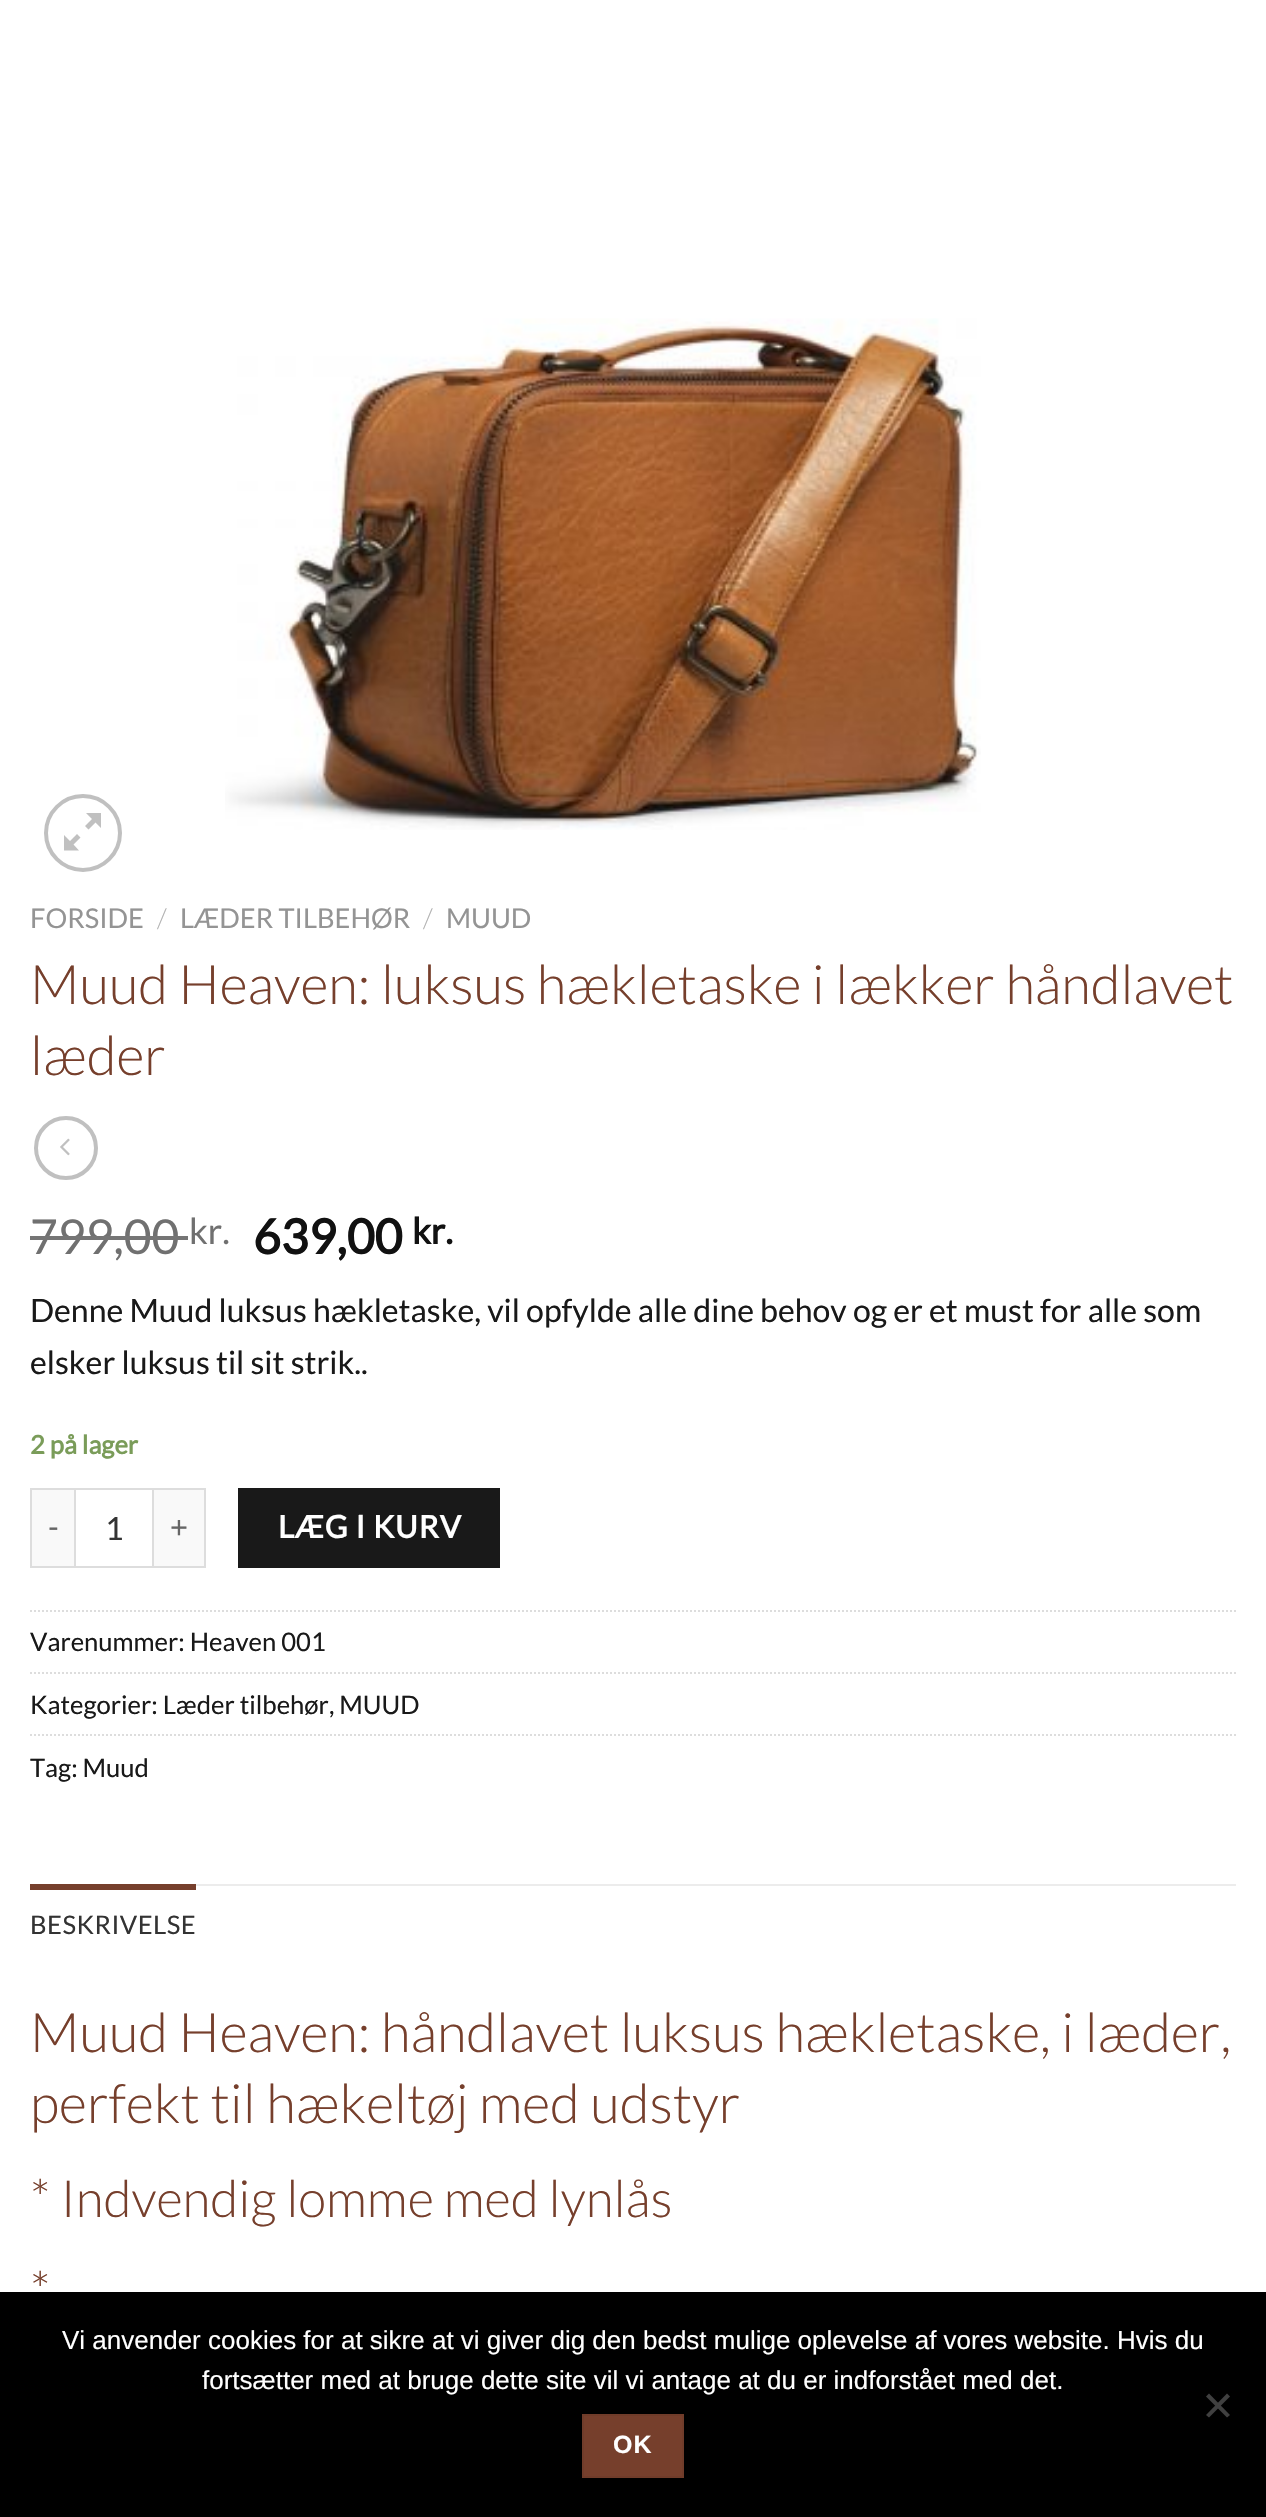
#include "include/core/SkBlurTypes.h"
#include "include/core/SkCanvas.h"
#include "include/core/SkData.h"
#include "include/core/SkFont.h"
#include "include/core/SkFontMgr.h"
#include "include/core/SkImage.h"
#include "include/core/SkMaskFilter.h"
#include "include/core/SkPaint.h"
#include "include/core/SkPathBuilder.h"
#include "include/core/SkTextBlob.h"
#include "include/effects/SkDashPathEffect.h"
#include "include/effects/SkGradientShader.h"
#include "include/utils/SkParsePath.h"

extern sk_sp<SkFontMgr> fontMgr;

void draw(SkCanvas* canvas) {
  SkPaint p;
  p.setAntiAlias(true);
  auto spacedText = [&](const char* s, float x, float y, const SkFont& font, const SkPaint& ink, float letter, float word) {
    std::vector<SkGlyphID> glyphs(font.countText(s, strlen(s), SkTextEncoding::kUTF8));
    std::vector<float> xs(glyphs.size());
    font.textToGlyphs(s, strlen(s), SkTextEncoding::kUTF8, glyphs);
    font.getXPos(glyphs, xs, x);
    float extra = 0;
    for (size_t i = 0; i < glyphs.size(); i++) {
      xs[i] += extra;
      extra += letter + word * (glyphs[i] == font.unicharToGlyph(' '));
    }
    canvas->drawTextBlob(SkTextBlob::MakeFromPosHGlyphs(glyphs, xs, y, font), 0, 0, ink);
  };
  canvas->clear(SK_ColorWHITE);
  p.setStyle(SkPaint::kStroke_Style);
  p.setStrokeWidth(4);
  p.setColor(SkColorSetRGB(192, 192, 192));
  canvas->drawCircle(83, 833, 37, p);
  p.setStyle(SkPaint::kFill_Style);
  canvas->drawPath(SkPathBuilder().moveTo(101, 813).lineTo(101, 828).lineTo(95.5f, 822.5f).lineTo(88.5f, 829.5f).lineTo(85, 826).lineTo(92, 819).lineTo(86, 813).close().moveTo(80.5f, 837.5f).lineTo(73.5f, 844.5f).lineTo(79, 850.5f).lineTo(64, 850.5f).lineTo(64, 835).lineTo(70, 841).lineTo(77, 834).close().detach(), p);
  canvas->drawImageRect(SkImages::DeferredFromEncodedData(SkData::MakeFromFileName("images/1.png")), SkRect::MakeLTRB(225, 318, 981, 830), SkSamplingOptions());
  p.setStyle(SkPaint::kStroke_Style);
  canvas->drawCircle(66, 1148, 30, p);
  canvas->drawImageRect(SkImages::DeferredFromEncodedData(SkData::MakeFromFileName("images/2.png")), SkRect::MakeLTRB(60, 1138, 70, 1156), SkSamplingOptions());
  p.setStyle(SkPaint::kFill_Style);
  p.setColor(SkColorSetRGB(249, 249, 249));
  canvas->drawRect(SkRect::MakeLTRB(32, 1490, 74, 1566), p);
  p.setColor(SkColorSetRGB(221, 221, 221));
  canvas->drawRect(SkRect::MakeLTRB(30, 1488, 74, 1490), p);
  canvas->drawRect(SkRect::MakeLTRB(30, 1566, 74, 1568), p);
  canvas->drawRect(SkRect::MakeLTRB(30, 1488, 32, 1568), p);
  p.setStyle(SkPaint::kStroke_Style);
  p.setStrokeWidth(2);
  canvas->drawRect(SkRect::MakeLTRB(75, 1489, 153, 1567), p);
  p.setStyle(SkPaint::kFill_Style);
  p.setColor(SkColorSetRGB(249, 249, 249));
  canvas->drawRect(SkRect::MakeLTRB(154, 1490, 204, 1566), p);
  p.setColor(SkColorSetRGB(221, 221, 221));
  canvas->drawRect(SkRect::MakeLTRB(154, 1488, 206, 1490), p);
  canvas->drawRect(SkRect::MakeLTRB(204, 1488, 206, 1568), p);
  canvas->drawRect(SkRect::MakeLTRB(154, 1566, 206, 1568), p);
  p.setColor(SkColorSetRGB(25, 25, 25));
  canvas->drawRect(SkRect::MakeLTRB(238, 1488, 500, 1568), p);
  p.setStyle(SkPaint::kStroke_Style);
  p.setColor(SkColorSetRGB(221, 221, 221));
  p.setPathEffect(SkDashPathEffect::Make({{2, 2}}, 0));
  canvas->drawPath(SkPathBuilder().moveTo(30, 1611).lineTo(1236, 1611).detach(), p);
  p.setPathEffect(nullptr);
  p.setPathEffect(SkDashPathEffect::Make({{2, 2}}, 0));
  canvas->drawPath(SkPathBuilder().moveTo(30, 1673).lineTo(1236, 1673).detach(), p);
  p.setPathEffect(nullptr);
  p.setPathEffect(SkDashPathEffect::Make({{2, 2}}, 0));
  canvas->drawPath(SkPathBuilder().moveTo(30, 1735).lineTo(1236, 1735).detach(), p);
  p.setPathEffect(nullptr);
  p.setStyle(SkPaint::kFill_Style);
  p.setColor(SkColorSetRGB(236, 236, 236));
  canvas->drawRect(SkRect::MakeLTRB(196, 1884, 1236, 1886), p);
  p.setColor(SkColorSetRGB(118, 63, 44));
  canvas->drawRect(SkRect::MakeLTRB(30, 1884, 196, 1890), p);
  p.setColor(SK_ColorBLACK);
  canvas->drawRect(SkRect::MakeLTRB(0, 2292, 1266, 2517), p);
  p.setColor(SkColorSetRGB(64, 64, 64));
  canvas->drawPath(SkPathBuilder().moveTo(1227, 2393.5f).lineTo(1230, 2396.5f).lineTo(1209, 2417.5f).lineTo(1206, 2415).close().detach(), p);
  canvas->drawPath(SkPathBuilder().moveTo(1206, 2396.5f).lineTo(1209, 2393.5f).lineTo(1230, 2415).lineTo(1227, 2417.5f).close().detach(), p);
  p.setColor(SkColorSetRGB(118, 63, 44));
  canvas->drawRect(SkRect::MakeLTRB(583, 2415, 683, 2477), p);
  p.setStyle(SkPaint::kStroke_Style);
  p.setColor(SkColorSetRGB(112, 60, 42));
  canvas->drawRect(SkRect::MakeLTRB(583, 2415, 683, 2477), p);
  SkFont font1(fontMgr->matchFamilyStyle("Lato", SkFontStyle::Normal()), 27.25f);
  font1.setSubpixel(true);
  p.setStyle(SkPaint::kFill_Style);
  p.setColor(SkColorSetRGB(148, 148, 148));
  canvas->drawString("FORSIDE", 30, 928, font1, p);
  SkFont font2(fontMgr->matchFamilyStyle("Lato", SkFontStyle(300, SkFontStyle::kNormal_Width, SkFontStyle::kUpright_Slant)), 27.25f);
  font2.setSubpixel(true);
  p.setColor(SkColorSetRGB(178, 178, 178));
  canvas->drawString("/", 157, 928, font2, p);
  p.setColor(SkColorSetRGB(148, 148, 148));
  canvas->drawString("LÆDER TILBEHØR", 180, 928, font1, p);
  p.setColor(SkColorSetRGB(178, 178, 178));
  canvas->drawString("/", 423, 928, font2, p);
  p.setColor(SkColorSetRGB(148, 148, 148));
  canvas->drawString("MUUD", 446, 928, font1, p);
  SkFont font3(fontMgr->matchFamilyStyle("Lato", SkFontStyle(300, SkFontStyle::kNormal_Width, SkFontStyle::kUpright_Slant)), 54.4f);
  font3.setSubpixel(true);
  p.setColor(SkColorSetRGB(118, 63, 44));
  canvas->drawString("Muud Heaven: luksus hækletaske i lækker håndlavet", 30, 1004, font3, p);
  canvas->drawString("læder", 30, 1075, font3, p);
  SkFont font4(fontMgr->matchFamilyStyle("Lato", SkFontStyle::Normal()), 48);
  font4.setSubpixel(true);
  p.setColor(SkColorSetRGB(112, 112, 112));
  canvas->drawString("799,00", 30, 1254, font4, p);
  p.setColor(SkColorSetRGB(117, 117, 117));
  canvas->drawRect(SkRect::MakeLTRB(30, 1236, 188, 1240), p);
  SkFont font5(fontMgr->matchFamilyStyle("Lato", SkFontStyle::Normal()), 36);
  font5.setSubpixel(true);
  p.setColor(SkColorSetRGB(112, 112, 112));
  canvas->drawString("kr.", 189, 1244, font5, p);
  SkFont font6(fontMgr->matchFamilyStyle("Lato", SkFontStyle::Bold()), 48);
  font6.setSubpixel(true);
  p.setColor(SkColorSetRGB(17, 17, 17));
  canvas->drawString("639,00", 253, 1254, font6, p);
  SkFont font7(fontMgr->matchFamilyStyle("Lato", SkFontStyle::Bold()), 36);
  font7.setSubpixel(true);
  canvas->drawString("kr.", 412, 1244, font7, p);
  SkFont font8(fontMgr->matchFamilyStyle("Lato", SkFontStyle::Normal()), 32);
  font8.setSubpixel(true);
  p.setColor(SkColorSetRGB(25, 25, 25));
  canvas->drawString("Denne Muud luksus hækletaske, vil opfylde alle dine behov og er et must for alle som", 30, 1322, font8, p);
  canvas->drawString("elsker luksus til sit strik..", 30, 1374, font8, p);
  SkFont font9(fontMgr->matchFamilyStyle("Lato", SkFontStyle::Bold()), 25.6f);
  font9.setSubpixel(true);
  p.setColor(SkColorSetRGB(122, 156, 89));
  canvas->drawString("2 på lager", 30, 1454, font9, p);
  SkFont font10(fontMgr->matchFamilyStyle("Lato", SkFontStyle::Normal()), 31);
  font10.setSubpixel(true);
  p.setColor(SkColorSetRGB(102, 102, 102));
  spacedText("-", 48, 1538, font10, p, 1, 0);
  p.setColor(SkColorSetRGB(51, 51, 51));
  canvas->drawString("1", 105, 1540, font8, p);
  p.setColor(SkColorSetRGB(102, 102, 102));
  spacedText("+", 170, 1538, font10, p, 1, 0);
  SkFont font11(fontMgr->matchFamilyStyle("Lato", SkFontStyle::Bold()), 31);
  font11.setSubpixel(true);
  p.setColor(SK_ColorWHITE);
  spacedText("LÆG I KURV", 278, 1538, font11, p, 1, 0);
  SkFont font12(fontMgr->matchFamilyStyle("Lato", SkFontStyle::Normal()), 25.6f);
  font12.setSubpixel(true);
  p.setColor(SkColorSetRGB(25, 25, 25));
  canvas->drawString("Varenummer: Heaven 001", 30, 1651, font12, p);
  canvas->drawString("Kategorier: Læder tilbehør, MUUD", 30, 1714, font12, p);
  canvas->drawString("Tag: Muud", 30, 1777, font12, p);
  p.setColor(SkColorSetRGB(51, 51, 51));
  spacedText("BESKRIVELSE", 30, 1934, font12, p, 0.5f, 0);
  p.setColor(SkColorSetRGB(118, 63, 44));
  canvas->drawString("Muud Heaven: håndlavet luksus hækletaske, i læder,", 30, 2052, font3, p);
  canvas->drawString("perfekt til hækeltøj med udstyr", 30, 2123, font3, p);
  SkFont font13(fontMgr->matchFamilyStyle("Lato", SkFontStyle(300, SkFontStyle::kNormal_Width, SkFontStyle::kUpright_Slant)), 51.25f);
  font13.setSubpixel(true);
  canvas->drawString("* Indvendig lomme med lynlås", 30, 2217, font13, p);
  canvas->drawString("*", 30, 2309, font13, p);
  SkFont font14(fontMgr->matchFamilyStyle("Liberation Sans", SkFontStyle::Normal()), 26);
  font14.setSubpixel(true);
  p.setColor(SK_ColorWHITE);
  canvas->drawString("Vi anvender cookies for at sikre at vi giver dig den bedst mulige oplevelse af vores website. Hvis du", 62, 2349, font14, p);
  canvas->drawString("fortsætter med at bruge dette site vil vi antage at du er indforstået med det.", 202, 2389, font14, p);
  SkFont font15(fontMgr->matchFamilyStyle("Liberation Sans", SkFontStyle::Bold()), 25);
  font15.setSubpixel(true);
  spacedText("OK", 613, 2453, font15, p, 1, 0);
}
